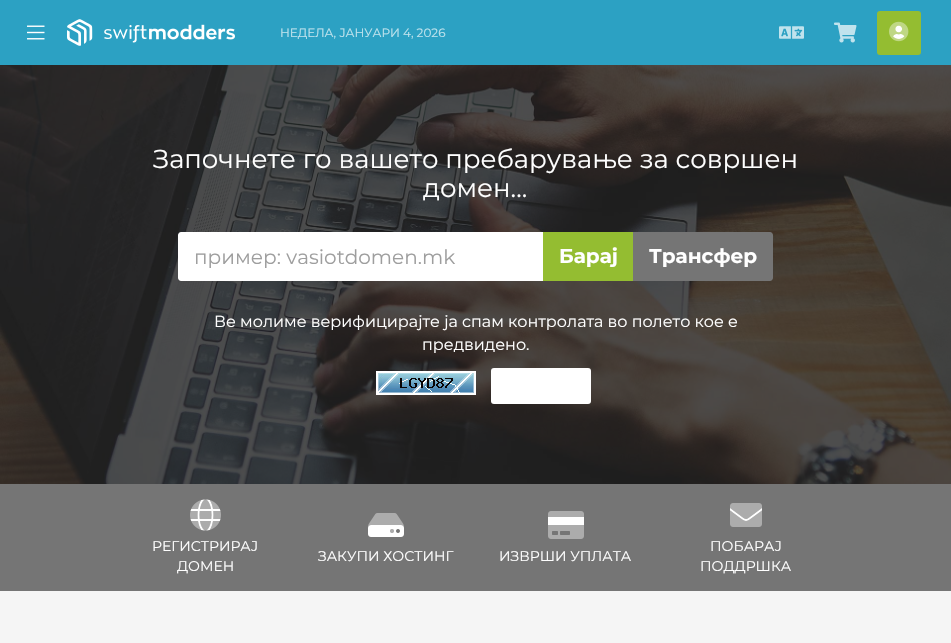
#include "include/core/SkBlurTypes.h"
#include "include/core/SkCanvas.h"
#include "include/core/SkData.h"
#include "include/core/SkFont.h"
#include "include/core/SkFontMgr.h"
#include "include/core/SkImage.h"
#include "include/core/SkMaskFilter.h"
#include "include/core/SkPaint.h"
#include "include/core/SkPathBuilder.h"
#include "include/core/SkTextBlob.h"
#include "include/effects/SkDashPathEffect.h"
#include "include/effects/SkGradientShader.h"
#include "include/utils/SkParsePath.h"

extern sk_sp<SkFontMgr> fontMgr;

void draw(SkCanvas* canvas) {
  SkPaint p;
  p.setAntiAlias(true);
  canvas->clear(SkColorSetRGB(245, 245, 245));
  p.setColor(SkColorSetRGB(44, 161, 195));
  canvas->drawRect(SkRect::MakeLTRB(0, 0, 951, 65), p);
  canvas->drawImageRect(SkImages::DeferredFromEncodedData(SkData::MakeFromFileName("images/1.png")), SkRect::MakeLTRB(27, 25, 45, 40), SkSamplingOptions());
  canvas->drawImageRect(SkImages::DeferredFromEncodedData(SkData::MakeFromFileName("images/2.png")), SkRect::MakeLTRB(67, 19, 235, 46), SkSamplingOptions());
  canvas->drawImageRect(SkImages::DeferredFromEncodedData(SkData::MakeFromFileName("images/3.png")), SkRect::MakeLTRB(779, 26, 804, 39), SkSamplingOptions());
  canvas->drawImageRect(SkImages::DeferredFromEncodedData(SkData::MakeFromFileName("images/4.png")), SkRect::MakeLTRB(834, 22, 857, 43), SkSamplingOptions());
  p.setColor(SkColorSetRGB(148, 189, 49));
  canvas->drawRoundRect(SkRect::MakeLTRB(877, 11, 921, 55), 3, 3, p);
  canvas->drawImageRect(SkImages::DeferredFromEncodedData(SkData::MakeFromFileName("images/6.png")), SkRect::MakeLTRB(893, 25, 905, 39), SkSamplingOptions());
  canvas->drawImageRect(SkImages::DeferredFromEncodedData(SkData::MakeFromFileName("images/5.png")), SkRect::MakeLTRB(889, 21, 909, 42), SkSamplingOptions());
  canvas->drawImageRect(SkImages::DeferredFromEncodedData(SkData::MakeFromFileName("images/7.png")), SkRect::MakeLTRB(0, 65, 951, 484), SkSamplingOptions());
  p.setColor(SK_ColorWHITE);
  canvas->drawPath(SkPathBuilder().moveTo(181, 232).lineTo(544, 232).lineTo(544, 281).lineTo(181, 281).cubicTo(179.5f, 281, 178, 279.5f, 178, 278).lineTo(178, 235).cubicTo(178, 233.5f, 179.5f, 232, 181, 232).close().detach(), p);
  p.setColor(SkColorSetRGB(148, 189, 49));
  canvas->drawRect(SkRect::MakeLTRB(543, 232, 633, 281), p);
  p.setColor(SkColorSetRGB(117, 117, 117));
  canvas->drawPath(SkPathBuilder().moveTo(633, 232).lineTo(770, 232).cubicTo(771.5f, 232, 773, 233.5f, 773, 235).lineTo(773, 278).cubicTo(773, 279.5f, 771.5f, 281, 770, 281).lineTo(633, 281).close().detach(), p);
  canvas->drawImageRect(SkImages::DeferredFromEncodedData(SkData::MakeFromFileName("images/8.png")), SkRect::MakeLTRB(376, 371, 476, 395), SkSamplingOptions());
  p.setColor(SK_ColorWHITE);
  canvas->drawRoundRect(SkRect::MakeLTRB(491, 368, 591, 404), 3, 3, p);
  p.setColor(SkColorSetRGB(117, 117, 117));
  canvas->drawRect(SkRect::MakeLTRB(0, 484, 951, 591), p);
  canvas->drawImageRect(SkImages::DeferredFromEncodedData(SkData::MakeFromFileName("images/9.png")), SkRect::MakeLTRB(190, 499, 221, 531), SkSamplingOptions());
  canvas->drawImageRect(SkImages::DeferredFromEncodedData(SkData::MakeFromFileName("images/10.png")), SkRect::MakeLTRB(190, 499, 221, 531), SkSamplingOptions());
  canvas->drawImageRect(SkImages::DeferredFromEncodedData(SkData::MakeFromFileName("images/12.png")), SkRect::MakeLTRB(368, 525, 404, 537), SkSamplingOptions());
  canvas->drawImageRect(SkImages::DeferredFromEncodedData(SkData::MakeFromFileName("images/11.png")), SkRect::MakeLTRB(368, 513, 404, 533), SkSamplingOptions());
  p.setColor(SK_ColorWHITE);
  canvas->drawRect(SkRect::MakeLTRB(548, 517, 584, 525), p);
  canvas->drawImageRect(SkImages::DeferredFromEncodedData(SkData::MakeFromFileName("images/13.png")), SkRect::MakeLTRB(548, 511, 584, 539), SkSamplingOptions());
  canvas->drawImageRect(SkImages::DeferredFromEncodedData(SkData::MakeFromFileName("images/15.png")), SkRect::MakeLTRB(730, 507, 762, 521), SkSamplingOptions());
  canvas->drawImageRect(SkImages::DeferredFromEncodedData(SkData::MakeFromFileName("images/14.png")), SkRect::MakeLTRB(730, 503, 762, 527), SkSamplingOptions());
  SkFont font1(fontMgr->matchFamilyStyle("Montserrat", SkFontStyle::Normal()), 12);
  font1.setSubpixel(true);
  p.setColor(SkColorSetRGB(192, 227, 237));
  canvas->drawString("НЕДЕЛА, ЈАНУАРИ 4, 2026", 280, 37, font1, p);
  SkFont font2(fontMgr->matchFamilyStyle("Montserrat", SkFontStyle::Normal()), 26);
  font2.setSubpixel(true);
  p.setColor(SK_ColorWHITE);
  canvas->drawString("Започнете го вашето пребарување за совршен", 153, 168, font2, p);
  canvas->drawString("домен...", 423, 197, font2, p);
  SkFont font3(fontMgr->matchFamilyStyle("Montserrat", SkFontStyle::Normal()), 20);
  font3.setSubpixel(true);
  p.setColor(SkColorSetRGB(158, 158, 158));
  canvas->drawString("пример: vasiotdomen.mk", 194, 264, font3, p);
  SkFont font4(fontMgr->matchFamilyStyle("Montserrat", SkFontStyle::Bold()), 20);
  font4.setSubpixel(true);
  p.setColor(SK_ColorWHITE);
  canvas->drawString("Барај", 559, 263, font4, p);
  canvas->drawString("Трансфер", 649, 263, font4, p);
  SkFont font5(fontMgr->matchFamilyStyle("Montserrat", SkFontStyle::Normal()), 16);
  font5.setSubpixel(true);
  canvas->drawString("Ве молиме верифицирајте ја спам контролата во полето кое е", 214, 327, font5, p);
  canvas->drawString("предвидено.", 422, 350, font5, p);
  SkFont font6(fontMgr->matchFamilyStyle("Montserrat", SkFontStyle::Normal()), 14);
  font6.setSubpixel(true);
  canvas->drawString("РЕГИСТРИРАЈ", 152, 551, font6, p);
  canvas->drawString("ДОМЕН", 177, 571, font6, p);
  canvas->drawString("ЗАКУПИ ХОСТИНГ", 318, 561, font6, p);
  canvas->drawString("ИЗВРШИ УПЛАТА", 499, 561, font6, p);
  canvas->drawString("ПОБАРАЈ", 710, 551, font6, p);
  canvas->drawString("ПОДДРШКА", 700, 571, font6, p);
}
